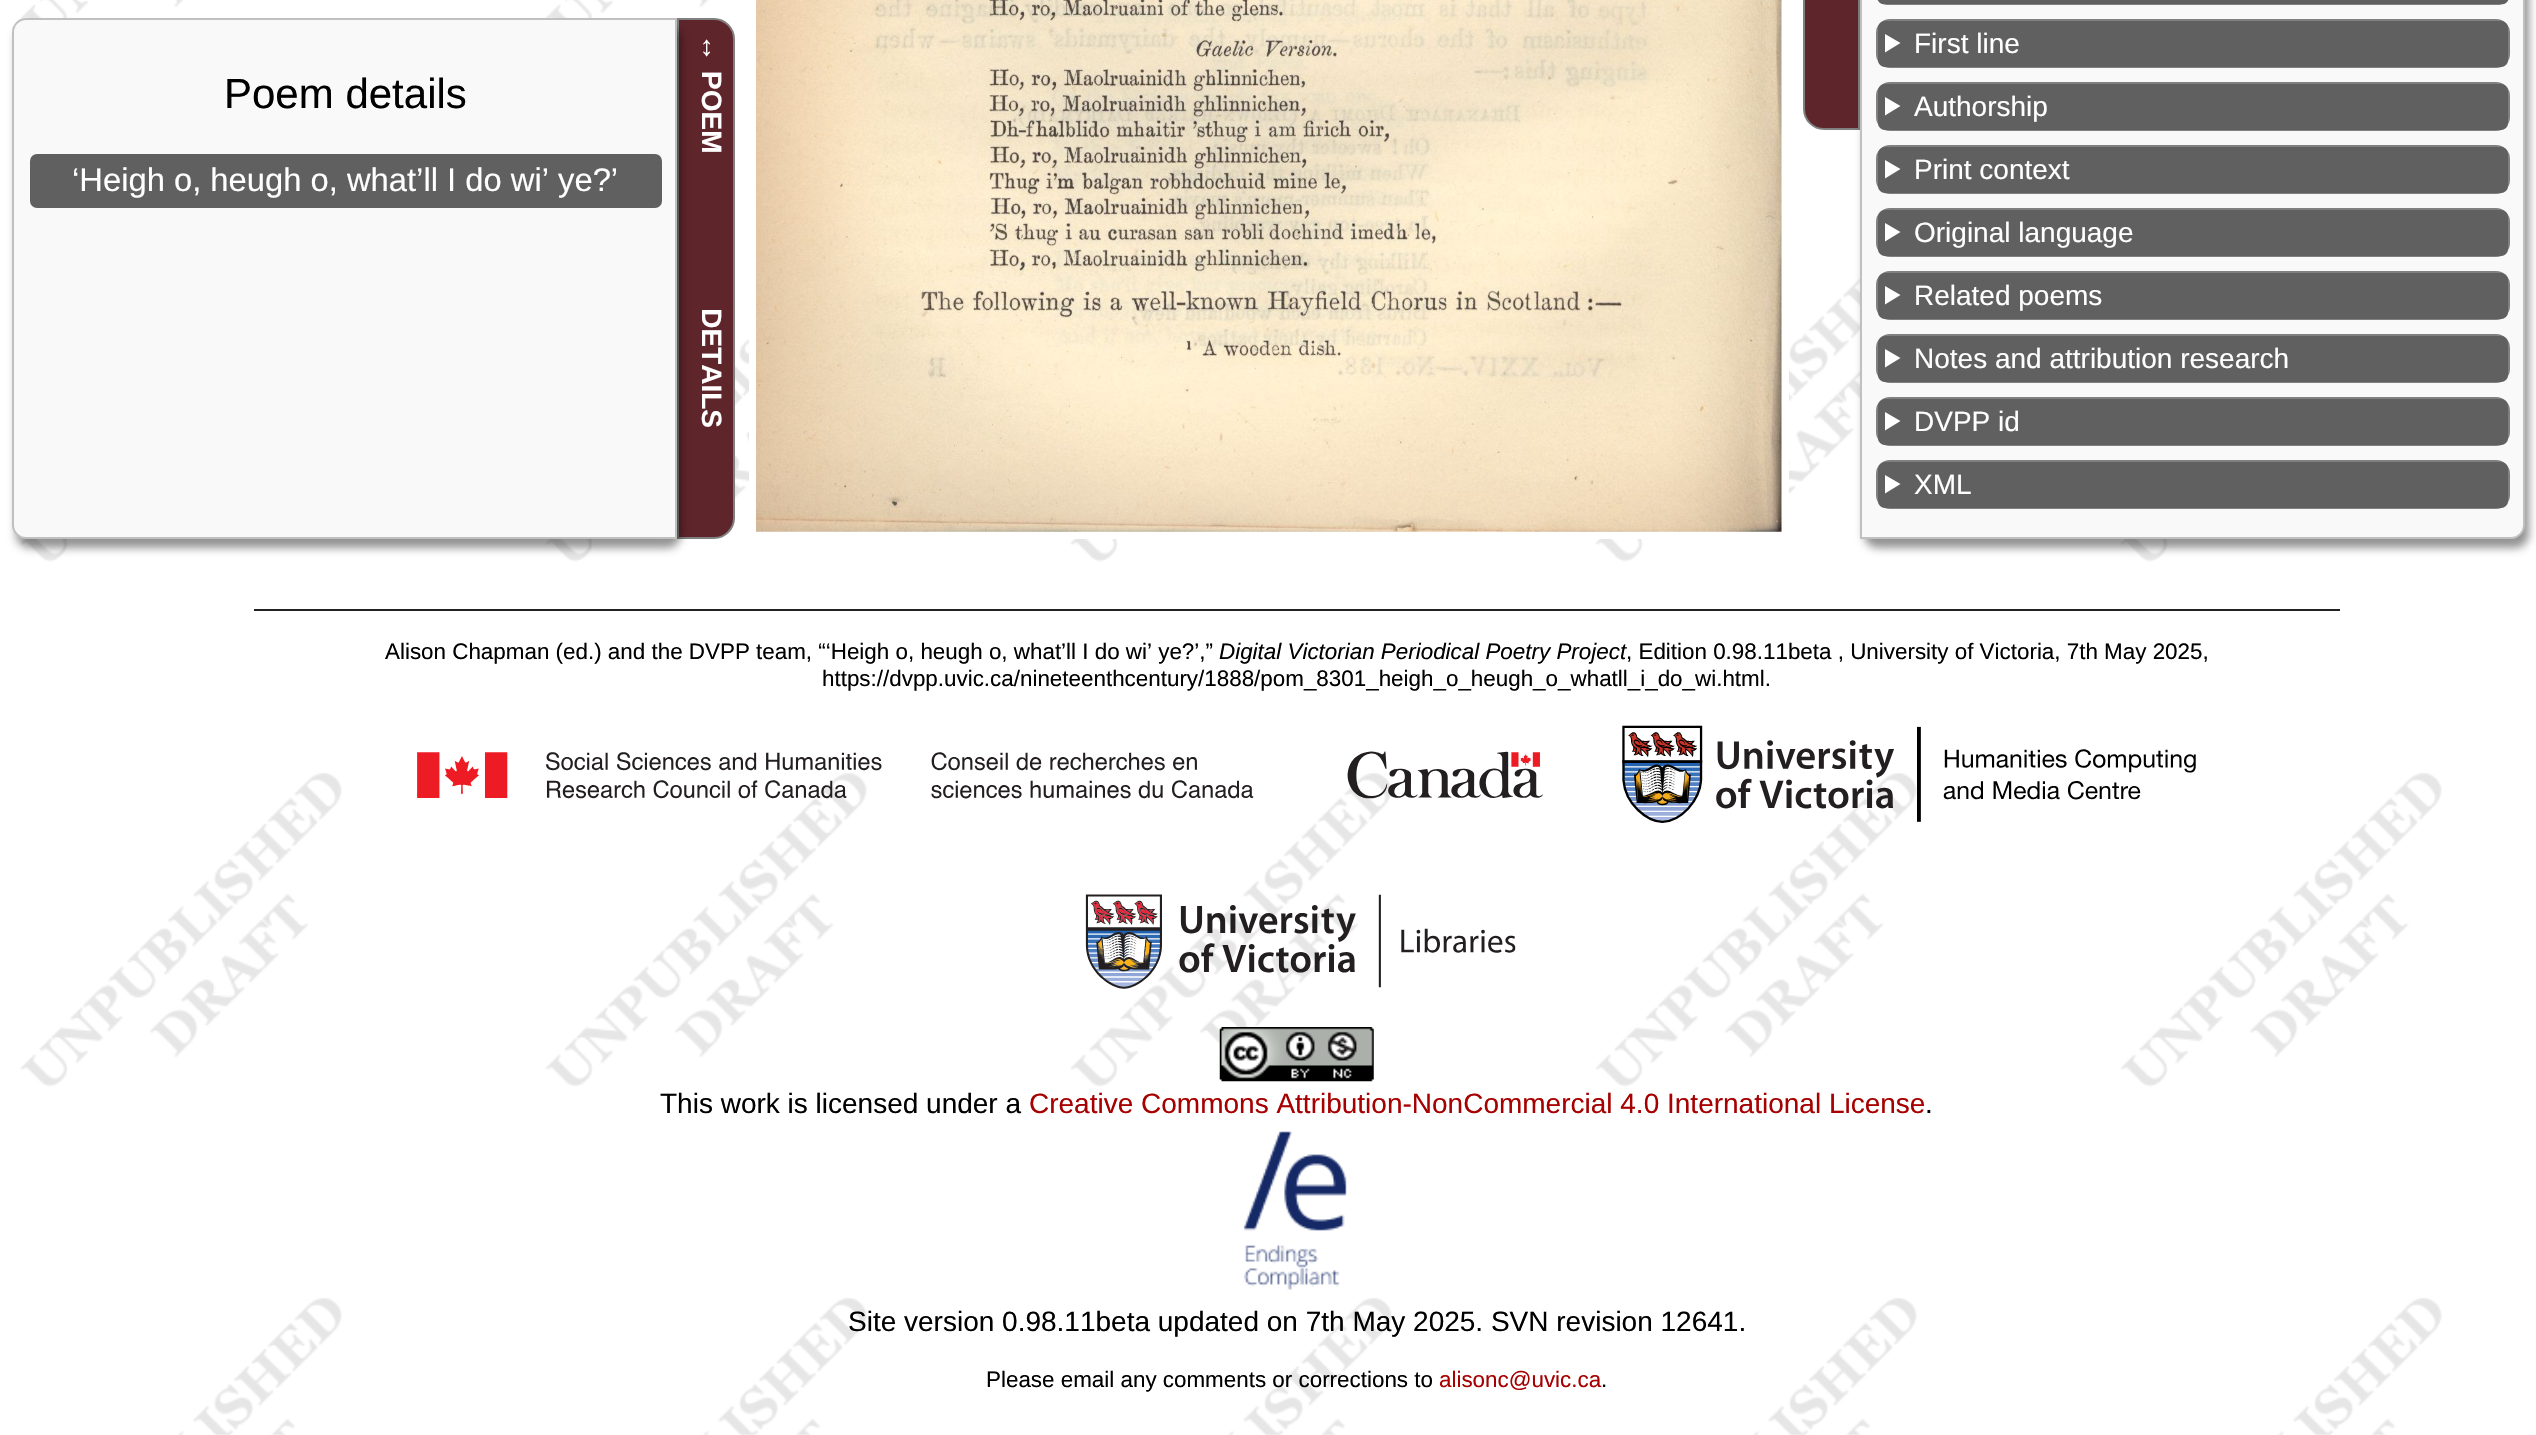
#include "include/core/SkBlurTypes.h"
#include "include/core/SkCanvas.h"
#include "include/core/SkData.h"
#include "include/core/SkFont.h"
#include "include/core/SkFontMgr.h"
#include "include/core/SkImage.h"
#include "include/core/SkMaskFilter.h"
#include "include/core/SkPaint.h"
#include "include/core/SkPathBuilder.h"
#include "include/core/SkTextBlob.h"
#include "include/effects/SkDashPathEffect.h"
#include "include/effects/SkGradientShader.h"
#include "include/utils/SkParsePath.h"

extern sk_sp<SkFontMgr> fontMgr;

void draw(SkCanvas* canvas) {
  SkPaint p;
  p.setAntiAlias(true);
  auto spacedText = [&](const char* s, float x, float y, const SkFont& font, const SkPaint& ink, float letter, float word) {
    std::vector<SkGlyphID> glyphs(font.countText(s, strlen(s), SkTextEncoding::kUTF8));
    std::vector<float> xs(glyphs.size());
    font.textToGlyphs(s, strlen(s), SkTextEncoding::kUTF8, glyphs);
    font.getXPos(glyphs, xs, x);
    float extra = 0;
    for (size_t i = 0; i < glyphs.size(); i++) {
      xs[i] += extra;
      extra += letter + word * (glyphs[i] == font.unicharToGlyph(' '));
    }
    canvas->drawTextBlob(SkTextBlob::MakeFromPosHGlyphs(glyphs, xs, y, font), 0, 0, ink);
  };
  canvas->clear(SK_ColorWHITE);
  canvas->drawImageRect(SkImages::DeferredFromEncodedData(SkData::MakeFromFileName("images/1.png")), SkRect::MakeLTRB(20, 0, 2442, 1435), SkSamplingOptions());
  p.setColor(SkColorSetRGB(94, 37, 43));
  canvas->drawPath(SkPathBuilder().moveTo(678, 19).lineTo(714, 19).cubicTo(725, 19, 734, 28, 734, 39).lineTo(734, 518).cubicTo(734, 529, 725, 538, 714, 538).lineTo(678, 538).close().detach(), p);
  p.setStyle(SkPaint::kStroke_Style);
  p.setStrokeWidth(2);
  p.setColor(SkColorSetRGB(128, 128, 128));
  canvas->drawPath(SkPathBuilder().moveTo(678, 19).lineTo(714, 19).cubicTo(725, 19, 734, 28, 734, 39).lineTo(734, 518).cubicTo(734, 529, 725, 538, 714, 538).lineTo(678, 538).close().detach(), p);
  p.setStyle(SkPaint::kFill_Style);
  p.setColor(SkColorSetARGB(107, 0, 0, 0));
  p.setMaskFilter(SkMaskFilter::MakeBlur(kNormal_SkBlurStyle, 4));
  canvas->drawRoundRect(SkRect::MakeLTRB(16, 26, 681, 548), 14, 14, p);
  p.setMaskFilter(nullptr);
  p.setColor(SkColorSetRGB(249, 249, 249));
  canvas->drawPath(SkPathBuilder().moveTo(26, 19).lineTo(676, 19).lineTo(676, 538).lineTo(26, 538).cubicTo(19, 538, 13, 532, 13, 525).lineTo(13, 32).cubicTo(13, 25, 19, 19, 26, 19).close().detach(), p);
  p.setStyle(SkPaint::kStroke_Style);
  p.setColor(SkColorSetRGB(192, 192, 192));
  canvas->drawPath(SkPathBuilder().moveTo(26, 19).lineTo(676, 19).lineTo(676, 538).lineTo(26, 538).cubicTo(19, 538, 13, 532, 13, 525).lineTo(13, 32).cubicTo(13, 25, 19, 19, 26, 19).close().detach(), p);
  p.setStyle(SkPaint::kFill_Style);
  p.setColor(SkColorSetRGB(96, 96, 96));
  canvas->drawRoundRect(SkRect::MakeLTRB(30, 154, 662, 208), 7, 7, p);
  p.setColor(SK_ColorWHITE);
  canvas->drawRect(SkRect::MakeLTRB(749, 0, 1789, 539), p);
  canvas->drawImageRect(SkImages::DeferredFromEncodedData(SkData::MakeFromFileName("images/2.png")), SkRect::MakeLTRB(756, 0, 1782, 532), SkSamplingOptions());
  p.setColor(SkColorSetRGB(94, 37, 43));
  canvas->drawPath(SkPathBuilder().moveTo(1824, -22).lineTo(1859, -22).lineTo(1859, 129).lineTo(1824, 129).cubicTo(1813, 129, 1804, 120, 1804, 109).lineTo(1804, -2).cubicTo(1804, -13, 1813, -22, 1824, -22).close().detach(), p);
  p.setStyle(SkPaint::kStroke_Style);
  p.setColor(SkColorSetRGB(128, 128, 128));
  canvas->drawPath(SkPathBuilder().moveTo(1824, -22).lineTo(1859, -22).lineTo(1859, 129).lineTo(1824, 129).cubicTo(1813, 129, 1804, 120, 1804, 109).lineTo(1804, -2).cubicTo(1804, -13, 1813, -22, 1824, -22).close().detach(), p);
  p.setStyle(SkPaint::kFill_Style);
  p.setColor(SkColorSetARGB(107, 0, 0, 0));
  p.setMaskFilter(SkMaskFilter::MakeBlur(kNormal_SkBlurStyle, 4));
  canvas->drawRoundRect(SkRect::MakeLTRB(1864, -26, 2529, 548), 14, 14, p);
  p.setMaskFilter(nullptr);
  p.setColor(SkColorSetRGB(249, 249, 249));
  canvas->drawPath(SkPathBuilder().moveTo(1861, -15).lineTo(2511, -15).cubicTo(2518, -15, 2524, -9, 2524, -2).lineTo(2524, 525).cubicTo(2524, 532, 2518, 538, 2511, 538).lineTo(1861, 538).close().detach(), p);
  p.setStyle(SkPaint::kStroke_Style);
  p.setColor(SkColorSetRGB(192, 192, 192));
  canvas->drawPath(SkPathBuilder().moveTo(1861, -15).lineTo(2511, -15).cubicTo(2518, -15, 2524, -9, 2524, -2).lineTo(2524, 525).cubicTo(2524, 532, 2518, 538, 2511, 538).lineTo(1861, 538).close().detach(), p);
  p.setColor(SkColorSetRGB(128, 128, 128));
  canvas->drawRoundRect(SkRect::MakeLTRB(1877, -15, 2509, 4), 13, 13, p);
  p.setStyle(SkPaint::kFill_Style);
  p.setColor(SkColorSetRGB(96, 96, 96));
  canvas->drawRoundRect(SkRect::MakeLTRB(1878, -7, 2508, 4), 7, 7, p);
  p.setStyle(SkPaint::kStroke_Style);
  p.setColor(SkColorSetRGB(128, 128, 128));
  canvas->drawRoundRect(SkRect::MakeLTRB(1877, 20, 2509, 67), 13, 13, p);
  p.setStyle(SkPaint::kFill_Style);
  p.setColor(SkColorSetRGB(96, 96, 96));
  canvas->drawRoundRect(SkRect::MakeLTRB(1878, 21, 2508, 67), 7, 7, p);
  p.setColor(SK_ColorWHITE);
  canvas->drawPath(SkPathBuilder().moveTo(1885, 34).lineTo(1900.5f, 43).lineTo(1885, 52.5f).close().detach(), p);
  p.setStyle(SkPaint::kStroke_Style);
  p.setColor(SkColorSetRGB(128, 128, 128));
  canvas->drawRoundRect(SkRect::MakeLTRB(1877, 83, 2509, 130), 13, 13, p);
  p.setStyle(SkPaint::kFill_Style);
  p.setColor(SkColorSetRGB(96, 96, 96));
  canvas->drawRoundRect(SkRect::MakeLTRB(1878, 84, 2508, 130), 7, 7, p);
  p.setColor(SK_ColorWHITE);
  canvas->drawPath(SkPathBuilder().moveTo(1885, 97).lineTo(1900.5f, 106).lineTo(1885, 115.5f).close().detach(), p);
  p.setStyle(SkPaint::kStroke_Style);
  p.setColor(SkColorSetRGB(128, 128, 128));
  canvas->drawRoundRect(SkRect::MakeLTRB(1877, 146, 2509, 193), 13, 13, p);
  p.setStyle(SkPaint::kFill_Style);
  p.setColor(SkColorSetRGB(96, 96, 96));
  canvas->drawRoundRect(SkRect::MakeLTRB(1878, 147, 2508, 193), 7, 7, p);
  p.setColor(SK_ColorWHITE);
  canvas->drawPath(SkPathBuilder().moveTo(1885, 160).lineTo(1900.5f, 169).lineTo(1885, 178.5f).close().detach(), p);
  p.setStyle(SkPaint::kStroke_Style);
  p.setColor(SkColorSetRGB(128, 128, 128));
  canvas->drawRoundRect(SkRect::MakeLTRB(1877, 209, 2509, 256), 13, 13, p);
  p.setStyle(SkPaint::kFill_Style);
  p.setColor(SkColorSetRGB(96, 96, 96));
  canvas->drawRoundRect(SkRect::MakeLTRB(1878, 210, 2508, 256), 7, 7, p);
  p.setColor(SK_ColorWHITE);
  canvas->drawPath(SkPathBuilder().moveTo(1885, 223).lineTo(1900.5f, 232).lineTo(1885, 241.5f).close().detach(), p);
  p.setStyle(SkPaint::kStroke_Style);
  p.setColor(SkColorSetRGB(128, 128, 128));
  canvas->drawRoundRect(SkRect::MakeLTRB(1877, 272, 2509, 319), 13, 13, p);
  p.setStyle(SkPaint::kFill_Style);
  p.setColor(SkColorSetRGB(96, 96, 96));
  canvas->drawRoundRect(SkRect::MakeLTRB(1878, 273, 2508, 319), 7, 7, p);
  p.setColor(SK_ColorWHITE);
  canvas->drawPath(SkPathBuilder().moveTo(1885, 286).lineTo(1900.5f, 295).lineTo(1885, 304.5f).close().detach(), p);
  p.setStyle(SkPaint::kStroke_Style);
  p.setColor(SkColorSetRGB(128, 128, 128));
  canvas->drawRoundRect(SkRect::MakeLTRB(1877, 335, 2509, 382), 13, 13, p);
  p.setStyle(SkPaint::kFill_Style);
  p.setColor(SkColorSetRGB(96, 96, 96));
  canvas->drawRoundRect(SkRect::MakeLTRB(1878, 336, 2508, 382), 7, 7, p);
  p.setColor(SK_ColorWHITE);
  canvas->drawPath(SkPathBuilder().moveTo(1885, 349).lineTo(1900.5f, 358).lineTo(1885, 367.5f).close().detach(), p);
  p.setStyle(SkPaint::kStroke_Style);
  p.setColor(SkColorSetRGB(128, 128, 128));
  canvas->drawRoundRect(SkRect::MakeLTRB(1877, 398, 2509, 445), 13, 13, p);
  p.setStyle(SkPaint::kFill_Style);
  p.setColor(SkColorSetRGB(96, 96, 96));
  canvas->drawRoundRect(SkRect::MakeLTRB(1878, 399, 2508, 445), 7, 7, p);
  p.setColor(SK_ColorWHITE);
  canvas->drawPath(SkPathBuilder().moveTo(1885, 412).lineTo(1900.5f, 421).lineTo(1885, 430.5f).close().detach(), p);
  p.setStyle(SkPaint::kStroke_Style);
  p.setColor(SkColorSetRGB(128, 128, 128));
  canvas->drawRoundRect(SkRect::MakeLTRB(1877, 461, 2509, 508), 13, 13, p);
  p.setStyle(SkPaint::kFill_Style);
  p.setColor(SkColorSetRGB(96, 96, 96));
  canvas->drawRoundRect(SkRect::MakeLTRB(1878, 462, 2508, 508), 7, 7, p);
  p.setColor(SK_ColorWHITE);
  canvas->drawPath(SkPathBuilder().moveTo(1885, 475).lineTo(1900.5f, 484).lineTo(1885, 493.5f).close().detach(), p);
  p.setColor(SkColorSetRGB(34, 34, 34));
  canvas->drawRect(SkRect::MakeLTRB(254, 609, 2340, 611), p);
  canvas->drawImageRect(SkImages::DeferredFromEncodedData(SkData::MakeFromFileName("images/3.png")), SkRect::MakeLTRB(417, 751, 1543, 799), SkSamplingOptions());
  canvas->drawImageRect(SkImages::DeferredFromEncodedData(SkData::MakeFromFileName("images/4.png")), SkRect::MakeLTRB(1622, 725, 2196, 823), SkSamplingOptions());
  canvas->drawImageRect(SkImages::DeferredFromEncodedData(SkData::MakeFromFileName("images/5.png")), SkRect::MakeLTRB(1085, 894, 1516, 989), SkSamplingOptions());
  canvas->drawImageRect(SkImages::DeferredFromEncodedData(SkData::MakeFromFileName("images/6.png")), SkRect::MakeLTRB(1219, 1027, 1374, 1082), SkSamplingOptions());
  canvas->drawImageRect(SkImages::DeferredFromEncodedData(SkData::MakeFromFileName("images/7.png")), SkRect::MakeLTRB(1243, 1131, 1347, 1290), SkSamplingOptions());
  SkFont font1(fontMgr->matchFamilyStyle("Liberation Sans", SkFontStyle::Normal()), 42);
  font1.setSubpixel(true);
  p.setColor(SK_ColorBLACK);
  canvas->drawString("Poem details", 224, 108, font1, p);
  SkFont font2(fontMgr->matchFamilyStyle("Liberation Sans", SkFontStyle::Normal()), 32.75f);
  font2.setSubpixel(true);
  p.setColor(SK_ColorWHITE);
  canvas->drawString("‘Heigh o, heugh o, what’ll I do wi’ ye?’", 72, 191, font2, p);
  SkFont font3(fontMgr->matchFamilyStyle("Liberation Sans", SkFontStyle::Bold()), 28);
  font3.setSubpixel(true);
  canvas->save();
  canvas->rotate(90, 702, 34);
  canvas->drawString("↔", 702, 34, font3, p);
  canvas->restore();
  canvas->save();
  canvas->rotate(90, 702, 71);
  spacedText("POEM DETAILS", 702, 71, font3, p, 0, 147);
  canvas->restore();
  SkFont font4(fontMgr->matchFamilyStyle("Liberation Sans", SkFontStyle::Normal()), 28);
  font4.setSubpixel(true);
  canvas->drawString("First line", 1914, 53, font4, p);
  canvas->drawString("Authorship", 1914, 116, font4, p);
  canvas->drawString("Print context", 1914, 179, font4, p);
  canvas->drawString("Original language", 1914, 242, font4, p);
  canvas->drawString("Related poems", 1914, 305, font4, p);
  canvas->drawString("Notes and attribution research", 1914, 368, font4, p);
  canvas->drawString("DVPP id", 1914, 431, font4, p);
  canvas->drawString("XML", 1914, 494, font4, p);
  SkFont font5(fontMgr->matchFamilyStyle("Liberation Sans", SkFontStyle::Normal()), 22.4f);
  font5.setSubpixel(true);
  p.setColor(SK_ColorBLACK);
  canvas->drawString("Alison Chapman (ed.) and the DVPP team, “‘Heigh o, heugh o, what’ll I do wi’ ye?’,”", 385, 659, font5, p);
  SkFont font6(fontMgr->matchFamilyStyle("Liberation Sans", SkFontStyle::Italic()), 22.4f);
  font6.setSubpixel(true);
  canvas->drawString("Digital Victorian Periodical Poetry Project", 1219, 659, font6, p);
  canvas->drawString(", Edition 0.98.11beta , University of Victoria, 7th May 2025,", 1626, 659, font5, p);
  canvas->drawString("https://dvpp.uvic.ca/nineteenthcentury/1888/pom_8301_heigh_o_heugh_o_whatll_i_do_wi.html.", 822, 686, font5, p);
  canvas->drawString("This work is licensed under a", 660, 1113, font4, p);
  p.setColor(SkColorSetRGB(166, 0, 0));
  canvas->drawString("Creative Commons Attribution-NonCommercial 4.0 International License", 1029, 1113, font4, p);
  p.setColor(SK_ColorBLACK);
  canvas->drawString(".", 1925, 1113, font4, p);
  canvas->drawString("Site version 0.98.11beta updated on 7th May 2025. SVN revision 12641.", 848, 1331, font4, p);
  canvas->drawString("Please email any comments or corrections to", 986, 1387, font5, p);
  p.setColor(SkColorSetRGB(166, 0, 0));
  canvas->drawString("alisonc@uvic.ca", 1439, 1387, font5, p);
  p.setColor(SK_ColorBLACK);
  canvas->drawString(".", 1601, 1387, font5, p);
}
